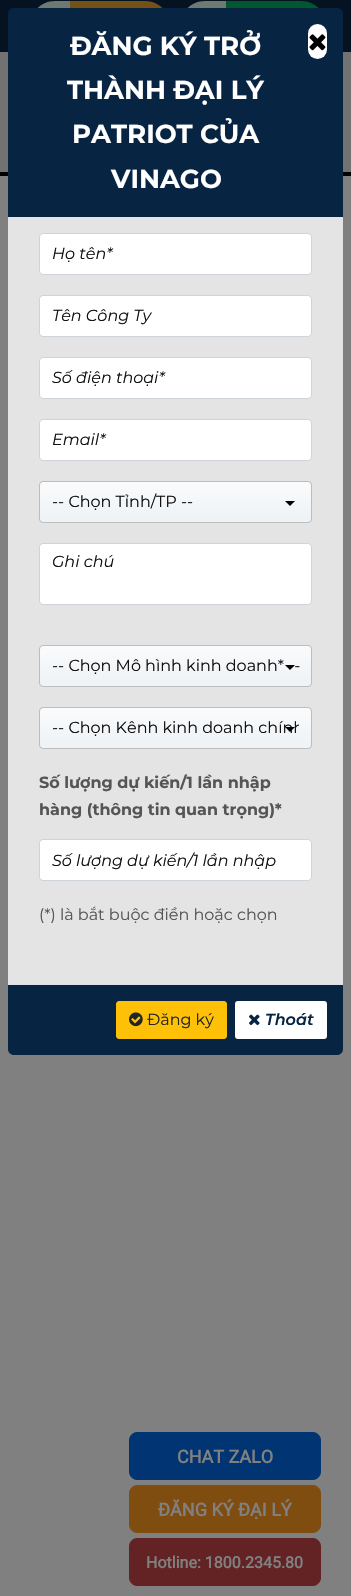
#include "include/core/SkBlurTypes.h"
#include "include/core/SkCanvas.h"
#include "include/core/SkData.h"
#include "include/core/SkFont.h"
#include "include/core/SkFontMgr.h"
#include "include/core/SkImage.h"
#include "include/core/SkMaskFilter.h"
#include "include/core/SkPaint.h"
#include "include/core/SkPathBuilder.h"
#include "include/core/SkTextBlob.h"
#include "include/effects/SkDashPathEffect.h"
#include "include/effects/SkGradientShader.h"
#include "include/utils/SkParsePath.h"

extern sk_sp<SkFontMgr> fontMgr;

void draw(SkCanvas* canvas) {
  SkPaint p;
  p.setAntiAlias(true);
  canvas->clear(SkColorSetRGB(128, 128, 128));
  p.setColor(SkColorSetRGB(4, 18, 34));
  canvas->drawRect(SkRect::MakeLTRB(0, 0, 351, 52), p);
  p.setColor(SkColorSetARGB(38, 0, 0, 0));
  p.setMaskFilter(SkMaskFilter::MakeBlur(kNormal_SkBlurStyle, 10));
  canvas->drawRoundRect(SkRect::MakeLTRB(30, 9, 170, 59), 25, 25, p);
  p.setMaskFilter(nullptr);
  p.setColor(SkColorSetRGB(109, 121, 114));
  canvas->drawPath(SkPathBuilder().moveTo(55, 1).lineTo(70, 1).lineTo(70, 51).lineTo(55, 51).cubicTo(41, 51, 30, 40, 30, 26).cubicTo(30, 12, 41, 1, 55, 1).close().detach(), p);
  p.setColor(SkColorSetARGB(38, 0, 0, 0));
  p.setMaskFilter(SkMaskFilter::MakeBlur(kNormal_SkBlurStyle, 10));
  canvas->drawRoundRect(SkRect::MakeLTRB(180, 9, 326, 59), 25, 25, p);
  p.setMaskFilter(nullptr);
  p.setColor(SkColorSetRGB(116, 82, 22));
  canvas->drawPath(SkPathBuilder().moveTo(70, 1).lineTo(145, 1).cubicTo(159, 1, 170, 12, 170, 26).cubicTo(170, 40, 159, 51, 145, 51).lineTo(70, 51).close().detach(), p);
  p.setColor(SkColorSetRGB(109, 121, 114));
  canvas->drawPath(SkPathBuilder().moveTo(205, 1).lineTo(226, 1).lineTo(226, 51).lineTo(205, 51).cubicTo(191, 51, 180, 40, 180, 26).cubicTo(180, 12, 191, 1, 205, 1).close().detach(), p);
  p.setColor(SkColorSetRGB(0, 87, 48));
  canvas->drawPath(SkPathBuilder().moveTo(226, 1).lineTo(301, 1).cubicTo(315, 1, 326, 12, 326, 26).cubicTo(326, 40, 315, 51, 301, 51).lineTo(226, 51).close().detach(), p);
  p.setColor(SkColorSetRGB(114, 114, 114));
  canvas->drawRect(SkRect::MakeLTRB(0, 52, 351, 172), p);
  p.setColor(SK_ColorBLACK);
  canvas->drawRect(SkRect::MakeLTRB(0, 172, 351, 176), p);
  p.setColor(SkColorSetRGB(8, 36, 67));
  canvas->drawPath(SkPathBuilder().moveTo(14, 8).lineTo(337, 8).cubicTo(340.5f, 8, 343, 10.5f, 343, 14).lineTo(343, 217).lineTo(8, 217).lineTo(8, 14).cubicTo(8, 10.5f, 10.5f, 8, 14, 8).close().detach(), p);
  p.setColor(SK_ColorWHITE);
  canvas->drawRoundRect(SkRect::MakeLTRB(308, 24, 327, 59), 9.5f, 9.5f, p);
  canvas->drawImageRect(SkImages::DeferredFromEncodedData(SkData::MakeFromFileName("images/1.png")), SkRect::MakeLTRB(309, 34, 326, 51), SkSamplingOptions());
  p.setColor(SkColorSetRGB(228, 228, 228));
  canvas->drawRect(SkRect::MakeLTRB(8, 217, 343, 984), p);
  p.setColor(SK_ColorWHITE);
  canvas->drawRoundRect(SkRect::MakeLTRB(39.5f, 233.5f, 311.5f, 274.5f), 3.5f, 3.5f, p);
  p.setStyle(SkPaint::kStroke_Style);
  p.setStrokeWidth(1);
  p.setColor(SkColorSetRGB(206, 212, 218));
  canvas->drawRoundRect(SkRect::MakeLTRB(39.5f, 233.5f, 311.5f, 274.5f), 3.5f, 3.5f, p);
  p.setStyle(SkPaint::kFill_Style);
  p.setColor(SK_ColorWHITE);
  canvas->drawRoundRect(SkRect::MakeLTRB(39.5f, 295.5f, 311.5f, 336.5f), 3.5f, 3.5f, p);
  p.setStyle(SkPaint::kStroke_Style);
  p.setColor(SkColorSetRGB(206, 212, 218));
  canvas->drawRoundRect(SkRect::MakeLTRB(39.5f, 295.5f, 311.5f, 336.5f), 3.5f, 3.5f, p);
  p.setStyle(SkPaint::kFill_Style);
  p.setColor(SK_ColorWHITE);
  canvas->drawRoundRect(SkRect::MakeLTRB(39.5f, 357.5f, 311.5f, 398.5f), 3.5f, 3.5f, p);
  p.setStyle(SkPaint::kStroke_Style);
  p.setColor(SkColorSetRGB(206, 212, 218));
  canvas->drawRoundRect(SkRect::MakeLTRB(39.5f, 357.5f, 311.5f, 398.5f), 3.5f, 3.5f, p);
  p.setStyle(SkPaint::kFill_Style);
  p.setColor(SK_ColorWHITE);
  canvas->drawRoundRect(SkRect::MakeLTRB(39.5f, 419.5f, 311.5f, 460.5f), 3.5f, 3.5f, p);
  p.setStyle(SkPaint::kStroke_Style);
  p.setColor(SkColorSetRGB(206, 212, 218));
  canvas->drawRoundRect(SkRect::MakeLTRB(39.5f, 419.5f, 311.5f, 460.5f), 3.5f, 3.5f, p);
  p.setStyle(SkPaint::kFill_Style);
  {
    const SkColor colors[] = {SkColorSetRGB(250, 251, 252), SkColorSetRGB(239, 243, 246)};
    const float stops[] = {0, 0.9f};
    const SkPoint ends[] = {{176, 482}, {176, 522}};
    p.setShader(SkGradientShader::MakeLinear(ends, colors, stops, 2, SkTileMode::kClamp));
    p.setAlpha(255);
  }
  canvas->drawRoundRect(SkRect::MakeLTRB(40, 482, 311, 522), 3, 3, p);
  p.setStyle(SkPaint::kStroke_Style);
  p.setShader(nullptr);
  p.setColor(SkColorSetRGB(188, 189, 189));
  canvas->drawRoundRect(SkRect::MakeLTRB(39.5f, 481.5f, 311.5f, 522.5f), 3.5f, 3.5f, p);
  p.setStyle(SkPaint::kFill_Style);
  p.setColor(SK_ColorBLACK);
  canvas->drawPath(SkPathBuilder().moveTo(285, 501).lineTo(295, 501).lineTo(290, 506).close().detach(), p);
  p.setColor(SK_ColorWHITE);
  canvas->drawRoundRect(SkRect::MakeLTRB(39.5f, 543.5f, 311.5f, 604.5f), 3.5f, 3.5f, p);
  p.setStyle(SkPaint::kStroke_Style);
  p.setColor(SkColorSetRGB(206, 212, 218));
  canvas->drawRoundRect(SkRect::MakeLTRB(39.5f, 543.5f, 311.5f, 604.5f), 3.5f, 3.5f, p);
  p.setStyle(SkPaint::kFill_Style);
  {
    const SkColor colors[] = {SkColorSetRGB(250, 251, 252), SkColorSetRGB(239, 243, 246)};
    const float stops[] = {0, 0.9f};
    const SkPoint ends[] = {{176, 646}, {176, 686}};
    p.setShader(SkGradientShader::MakeLinear(ends, colors, stops, 2, SkTileMode::kClamp));
    p.setAlpha(255);
  }
  canvas->drawRoundRect(SkRect::MakeLTRB(40, 646, 311, 686), 3, 3, p);
  p.setStyle(SkPaint::kStroke_Style);
  p.setShader(nullptr);
  p.setColor(SkColorSetRGB(188, 189, 189));
  canvas->drawRoundRect(SkRect::MakeLTRB(39.5f, 645.5f, 311.5f, 686.5f), 3.5f, 3.5f, p);
  p.setStyle(SkPaint::kFill_Style);
  {
    const SkColor colors[] = {SkColorSetRGB(250, 251, 252), SkColorSetRGB(239, 243, 246)};
    const float stops[] = {0, 0.9f};
    const SkPoint ends[] = {{176, 708}, {176, 748}};
    p.setShader(SkGradientShader::MakeLinear(ends, colors, stops, 2, SkTileMode::kClamp));
    p.setAlpha(255);
  }
  canvas->drawRoundRect(SkRect::MakeLTRB(40, 708, 311, 748), 3, 3, p);
  p.setStyle(SkPaint::kStroke_Style);
  p.setShader(nullptr);
  p.setColor(SkColorSetRGB(188, 189, 189));
  canvas->drawRoundRect(SkRect::MakeLTRB(39.5f, 707.5f, 311.5f, 748.5f), 3.5f, 3.5f, p);
  p.setStyle(SkPaint::kFill_Style);
  p.setColor(SK_ColorWHITE);
  canvas->drawRoundRect(SkRect::MakeLTRB(39.5f, 839.5f, 311.5f, 880.5f), 3.5f, 3.5f, p);
  p.setStyle(SkPaint::kStroke_Style);
  p.setColor(SkColorSetRGB(206, 212, 218));
  canvas->drawRoundRect(SkRect::MakeLTRB(39.5f, 839.5f, 311.5f, 880.5f), 3.5f, 3.5f, p);
  p.setStyle(SkPaint::kFill_Style);
  p.setColor(SkColorSetRGB(8, 36, 67));
  canvas->drawPath(SkPathBuilder().moveTo(8, 984).lineTo(343, 984).lineTo(343, 1049).cubicTo(343, 1052.5f, 340.5f, 1055, 337, 1055).lineTo(14, 1055).cubicTo(10.5f, 1055, 8, 1052.5f, 8, 1049).close().detach(), p);
  p.setColor(SkColorSetRGB(222, 226, 230));
  canvas->drawRect(SkRect::MakeLTRB(8, 984, 343, 985), p);
  p.setColor(SkColorSetRGB(255, 193, 7));
  canvas->drawRoundRect(SkRect::MakeLTRB(116.5f, 1001.5f, 226.5f, 1038.5f), 2.5f, 2.5f, p);
  p.setStyle(SkPaint::kStroke_Style);
  canvas->drawRoundRect(SkRect::MakeLTRB(116.5f, 1001.5f, 226.5f, 1038.5f), 2.5f, 2.5f, p);
  canvas->drawImageRect(SkImages::DeferredFromEncodedData(SkData::MakeFromFileName("images/2.png")), SkRect::MakeLTRB(129, 1012, 143, 1027), SkSamplingOptions());
  p.setStyle(SkPaint::kFill_Style);
  p.setColor(SK_ColorWHITE);
  canvas->drawRoundRect(SkRect::MakeLTRB(235, 1001, 327, 1039), 3, 3, p);
  canvas->drawImageRect(SkImages::DeferredFromEncodedData(SkData::MakeFromFileName("images/3.png")), SkRect::MakeLTRB(249, 1014, 260, 1026), SkSamplingOptions());
  p.setColor(SkColorSetRGB(0, 52, 115));
  canvas->drawRoundRect(SkRect::MakeLTRB(129.5f, 1432.5f, 320.5f, 1479.5f), 7.5f, 7.5f, p);
  p.setStyle(SkPaint::kStroke_Style);
  canvas->drawRoundRect(SkRect::MakeLTRB(129.5f, 1432.5f, 320.5f, 1479.5f), 7.5f, 7.5f, p);
  p.setStyle(SkPaint::kFill_Style);
  p.setColor(SkColorSetRGB(128, 77, 17));
  canvas->drawRoundRect(SkRect::MakeLTRB(129.5f, 1485.5f, 320.5f, 1532.5f), 7.5f, 7.5f, p);
  p.setStyle(SkPaint::kStroke_Style);
  canvas->drawRoundRect(SkRect::MakeLTRB(129.5f, 1485.5f, 320.5f, 1532.5f), 7.5f, 7.5f, p);
  p.setStyle(SkPaint::kFill_Style);
  p.setColor(SkColorSetRGB(99, 34, 36));
  canvas->drawRoundRect(SkRect::MakeLTRB(129.5f, 1538.5f, 320.5f, 1585.5f), 7.5f, 7.5f, p);
  p.setStyle(SkPaint::kStroke_Style);
  canvas->drawRoundRect(SkRect::MakeLTRB(129.5f, 1538.5f, 320.5f, 1585.5f), 7.5f, 7.5f, p);
  SkFont font1(fontMgr->matchFamilyStyle("Montserrat", SkFontStyle::Bold()), 26);
  font1.setSubpixel(true);
  p.setStyle(SkPaint::kFill_Style);
  p.setColor(SK_ColorWHITE);
  canvas->drawString("ĐĂNG KÝ TRỞ", 70, 55, font1, p);
  canvas->drawString("THÀNH ĐẠI LÝ", 67, 99, font1, p);
  canvas->drawString("PATRIOT CỦA", 72, 143, font1, p);
  canvas->drawString("VINAGO", 111, 188, font1, p);
  SkFont font2(fontMgr->matchFamilyStyle("Montserrat", SkFontStyle::Italic()), 16);
  font2.setSubpixel(true);
  p.setColor(SkColorSetRGB(17, 17, 17));
  canvas->drawString("Họ tên*", 52, 259, font2, p);
  canvas->drawString("Tên Công Ty", 52, 321, font2, p);
  canvas->drawString("Số điện thoại*", 52, 383, font2, p);
  canvas->drawString("Email*", 52, 445, font2, p);
  SkFont font3(fontMgr->matchFamilyStyle("Montserrat", SkFontStyle::Normal()), 16);
  font3.setSubpixel(true);
  canvas->drawString("-- Chọn Tỉnh/TP --", 52, 507, font3, p);
  canvas->drawString("Ghi chú", 52, 567, font2, p);
  canvas->drawString("-- Chọn Mô hình kinh doanh* --", 52, 671, font3, p);
  p.setColor(SK_ColorBLACK);
  canvas->drawPath(SkPathBuilder().moveTo(285, 665).lineTo(295, 665).lineTo(290, 670).close().detach(), p);
  canvas->save();
  canvas->clipRect(SkRect::MakeLTRB(52, 714, 299, 742));
  p.setColor(SkColorSetRGB(17, 17, 17));
  canvas->drawString("-- Chọn Kênh kinh doanh chính", 52, 733, font3, p);
  canvas->restore();
  p.setColor(SK_ColorBLACK);
  canvas->drawPath(SkPathBuilder().moveTo(285, 727).lineTo(295, 727).lineTo(290, 732).close().detach(), p);
  SkFont font4(fontMgr->matchFamilyStyle("Montserrat", SkFontStyle::Bold()), 16);
  font4.setSubpixel(true);
  p.setColor(SkColorSetRGB(85, 85, 85));
  canvas->drawString("Số lượng dự kiến/1 lần nhập", 39, 788, font4, p);
  canvas->drawString("hàng (thông tin quan trọng)*", 39, 815, font4, p);
  p.setColor(SkColorSetRGB(17, 17, 17));
  canvas->drawString("Số lượng dự kiến/1 lần nhập", 52, 866, font2, p);
  p.setColor(SkColorSetRGB(85, 85, 85));
  canvas->drawString("(*) là bắt buộc điền hoặc chọn", 39, 920, font3, p);
  p.setColor(SkColorSetRGB(33, 37, 41));
  canvas->drawString("Đăng ký", 147, 1025, font3, p);
  SkFont font5(fontMgr->matchFamilyStyle("Montserrat", SkFontStyle(600, SkFontStyle::kNormal_Width, SkFontStyle::kItalic_Slant)), 16);
  font5.setSubpixel(true);
  p.setColor(SkColorSetRGB(8, 36, 67));
  canvas->drawString("Thoát", 265, 1025, font5, p);
  SkFont font6(fontMgr->matchFamilyStyle("Roboto", SkFontStyle::Bold()), 18);
  font6.setSubpixel(true);
  p.setColor(SkColorSetRGB(128, 128, 128));
  canvas->drawString("CHAT ZALO", 177, 1463, font6, p);
  canvas->drawString("ĐĂNG KÝ ĐẠI LÝ", 158, 1516, font6, p);
  SkFont font7(fontMgr->matchFamilyStyle("Roboto", SkFontStyle::Bold()), 16);
  font7.setSubpixel(true);
  canvas->drawString("Hotline: 1800.2345.80", 146, 1568, font7, p);
}
